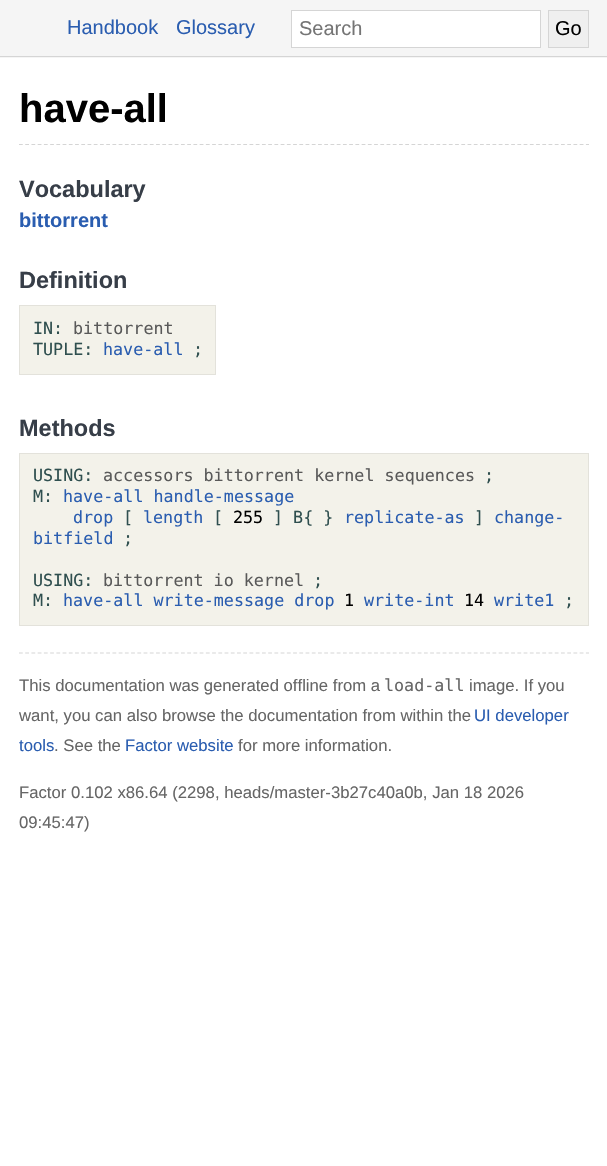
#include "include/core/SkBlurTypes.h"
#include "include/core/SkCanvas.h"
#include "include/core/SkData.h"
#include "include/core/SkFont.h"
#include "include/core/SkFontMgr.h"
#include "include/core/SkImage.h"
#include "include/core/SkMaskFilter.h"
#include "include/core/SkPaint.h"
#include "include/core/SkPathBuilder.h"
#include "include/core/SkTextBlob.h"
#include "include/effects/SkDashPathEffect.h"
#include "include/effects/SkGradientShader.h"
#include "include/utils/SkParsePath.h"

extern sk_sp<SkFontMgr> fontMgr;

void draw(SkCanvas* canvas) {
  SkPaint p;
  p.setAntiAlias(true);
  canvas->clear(SK_ColorWHITE);
  p.setColor(SkColorSetRGB(245, 245, 245));
  canvas->drawRect(SkRect::MakeLTRB(0, 0, 607, 58), p);
  p.setColor(SkColorSetRGB(213, 213, 213));
  canvas->drawRect(SkRect::MakeLTRB(0, 56, 607, 57), p);
  p.setColor(SK_ColorWHITE);
  canvas->drawRect(SkRect::MakeLTRB(291.5f, 10.5f, 540.5f, 47.5f), p);
  p.setStyle(SkPaint::kStroke_Style);
  p.setStrokeWidth(1);
  p.setColor(SkColorSetRGB(213, 213, 213));
  canvas->drawRect(SkRect::MakeLTRB(291.5f, 10.5f, 540.5f, 47.5f), p);
  p.setStyle(SkPaint::kFill_Style);
  p.setColor(SkColorSetRGB(239, 239, 239));
  canvas->drawRect(SkRect::MakeLTRB(548.5f, 10.5f, 588.5f, 47.5f), p);
  p.setStyle(SkPaint::kStroke_Style);
  p.setColor(SkColorSetRGB(213, 213, 213));
  canvas->drawRect(SkRect::MakeLTRB(548.5f, 10.5f, 588.5f, 47.5f), p);
  p.setStrokeWidth(1.2f);
  p.setPathEffect(SkDashPathEffect::Make({{3.75f, 2.48f}}, 0));
  canvas->drawPath(SkPathBuilder().moveTo(19, 144.5f).lineTo(589, 144.5f).detach(), p);
  p.setPathEffect(nullptr);
  p.setStyle(SkPaint::kFill_Style);
  p.setColor(SkColorSetRGB(243, 242, 234));
  canvas->drawRect(SkRect::MakeLTRB(19.5f, 305.5f, 215.5f, 374.5f), p);
  p.setStyle(SkPaint::kStroke_Style);
  p.setStrokeWidth(1);
  p.setColor(SkColorSetRGB(227, 226, 219));
  canvas->drawRect(SkRect::MakeLTRB(19.5f, 305.5f, 215.5f, 374.5f), p);
  p.setStyle(SkPaint::kFill_Style);
  p.setColor(SkColorSetRGB(243, 242, 234));
  canvas->drawRect(SkRect::MakeLTRB(19.5f, 453.5f, 588.5f, 625.5f), p);
  p.setStyle(SkPaint::kStroke_Style);
  p.setColor(SkColorSetRGB(227, 226, 219));
  canvas->drawRect(SkRect::MakeLTRB(19.5f, 453.5f, 588.5f, 625.5f), p);
  p.setStrokeWidth(1.2f);
  p.setColor(SkColorSetRGB(213, 213, 213));
  p.setPathEffect(SkDashPathEffect::Make({{3.75f, 2.48f}}, 0));
  canvas->drawPath(SkPathBuilder().moveTo(19, 653).lineTo(589, 653).detach(), p);
  p.setPathEffect(nullptr);
  SkFont font1(fontMgr->matchFamilyStyle("Liberation Sans", SkFontStyle::Normal()), 20);
  font1.setSubpixel(true);
  p.setStyle(SkPaint::kFill_Style);
  p.setColor(SkColorSetRGB(42, 93, 176));
  canvas->drawString("Handbook", 67, 34, font1, p);
  canvas->drawString("Glossary", 176, 34, font1, p);
  p.setColor(SkColorSetRGB(117, 117, 117));
  canvas->drawString("Search", 299, 35, font1, p);
  p.setColor(SK_ColorBLACK);
  canvas->drawString("Go", 555, 35, font1, p);
  SkFont font2(fontMgr->matchFamilyStyle("Liberation Sans", SkFontStyle::Bold()), 40);
  font2.setSubpixel(true);
  canvas->drawString("have-all", 19, 122, font2, p);
  SkFont font3(fontMgr->matchFamilyStyle("Liberation Sans", SkFontStyle::Bold()), 23.5f);
  font3.setSubpixel(true);
  p.setColor(SkColorSetRGB(55, 62, 72));
  canvas->drawString("Vocabulary", 19, 197, font3, p);
  SkFont font4(fontMgr->matchFamilyStyle("Liberation Sans", SkFontStyle::Bold()), 20);
  font4.setSubpixel(true);
  p.setColor(SkColorSetRGB(42, 93, 176));
  canvas->drawString("bittorrent", 19, 227, font4, p);
  p.setColor(SkColorSetRGB(55, 62, 72));
  canvas->drawString("Definition", 19, 288, font3, p);
  SkFont font5(fontMgr->matchFamilyStyle("DejaVu Sans Mono", SkFontStyle::Normal()), 16.7f);
  font5.setSubpixel(true);
  p.setColor(SkColorSetRGB(47, 79, 79));
  canvas->drawString("IN:", 33, 334, font5, p);
  p.setColor(SkColorSetRGB(89, 89, 89));
  canvas->drawString("bittorrent", 73, 334, font5, p);
  p.setColor(SkColorSetRGB(47, 79, 79));
  canvas->drawString("TUPLE:", 33, 355, font5, p);
  p.setColor(SkColorSetRGB(42, 93, 176));
  canvas->drawString("have-all", 103, 355, font5, p);
  p.setColor(SkColorSetRGB(47, 79, 79));
  canvas->drawString(";", 193, 355, font5, p);
  p.setColor(SkColorSetRGB(55, 62, 72));
  canvas->drawString("Methods", 19, 436, font3, p);
  p.setColor(SkColorSetRGB(47, 79, 79));
  canvas->drawString("USING:", 33, 481, font5, p);
  p.setColor(SkColorSetRGB(89, 89, 89));
  canvas->drawString("accessors bittorrent kernel sequences", 103, 481, font5, p);
  p.setColor(SkColorSetRGB(47, 79, 79));
  canvas->drawString(";", 484, 481, font5, p);
  canvas->drawString("M:", 33, 502, font5, p);
  p.setColor(SkColorSetRGB(42, 93, 176));
  canvas->drawString("have-all handle-message", 63, 502, font5, p);
  canvas->drawString("drop", 73, 523, font5, p);
  p.setColor(SkColorSetRGB(47, 79, 79));
  canvas->drawString("[", 123, 523, font5, p);
  p.setColor(SkColorSetRGB(42, 93, 176));
  canvas->drawString("length", 143, 523, font5, p);
  p.setColor(SkColorSetRGB(47, 79, 79));
  canvas->drawString("[", 213, 523, font5, p);
  p.setColor(SK_ColorBLACK);
  canvas->drawString("255", 233, 523, font5, p);
  p.setColor(SkColorSetRGB(47, 79, 79));
  canvas->drawString("] B{ }", 273, 523, font5, p);
  p.setColor(SkColorSetRGB(42, 93, 176));
  canvas->drawString("replicate-as", 344, 523, font5, p);
  p.setColor(SkColorSetRGB(47, 79, 79));
  canvas->drawString("]", 474, 523, font5, p);
  p.setColor(SkColorSetRGB(42, 93, 176));
  canvas->drawString("change-", 494, 523, font5, p);
  canvas->drawString("bitfield", 33, 544, font5, p);
  p.setColor(SkColorSetRGB(47, 79, 79));
  canvas->drawString(";", 123, 544, font5, p);
  canvas->drawString("USING:", 33, 586, font5, p);
  p.setColor(SkColorSetRGB(89, 89, 89));
  canvas->drawString("bittorrent io kernel", 103, 586, font5, p);
  p.setColor(SkColorSetRGB(47, 79, 79));
  canvas->drawString(";", 313, 586, font5, p);
  canvas->drawString("M:", 33, 606, font5, p);
  p.setColor(SkColorSetRGB(42, 93, 176));
  canvas->drawString("have-all write-message drop", 63, 606, font5, p);
  p.setColor(SK_ColorBLACK);
  canvas->drawString("1", 344, 606, font5, p);
  p.setColor(SkColorSetRGB(42, 93, 176));
  canvas->drawString("write-int", 364, 606, font5, p);
  p.setColor(SK_ColorBLACK);
  canvas->drawString("14", 464, 606, font5, p);
  p.setColor(SkColorSetRGB(42, 93, 176));
  canvas->drawString("write1", 494, 606, font5, p);
  p.setColor(SkColorSetRGB(47, 79, 79));
  canvas->drawString(";", 564, 606, font5, p);
  SkFont font6(fontMgr->matchFamilyStyle("Liberation Sans", SkFontStyle::Normal()), 16.7f);
  font6.setSubpixel(true);
  p.setColor(SkColorSetRGB(102, 102, 102));
  canvas->drawString("This documentation was generated offline from a", 19, 691, font6, p);
  canvas->drawString("load-all", 384, 691, font5, p);
  canvas->drawString("image. If you", 469, 691, font6, p);
  canvas->drawString("want, you can also browse the documentation from within the", 19, 721, font6, p);
  p.setColor(SkColorSetRGB(42, 93, 176));
  canvas->drawString("UI developer", 474, 721, font6, p);
  canvas->drawString("tools", 19, 751, font6, p);
  p.setColor(SkColorSetRGB(102, 102, 102));
  canvas->drawString(". See the", 54, 751, font6, p);
  p.setColor(SkColorSetRGB(42, 93, 176));
  canvas->drawString("Factor website", 125, 751, font6, p);
  p.setColor(SkColorSetRGB(102, 102, 102));
  canvas->drawString("for more information.", 238, 751, font6, p);
  canvas->drawString("Factor 0.102 x86.64 (2298, heads/master-3b27c40a0b, Jan 18 2026", 19, 798, font6, p);
  canvas->drawString("09:45:47)", 19, 828, font6, p);
}
